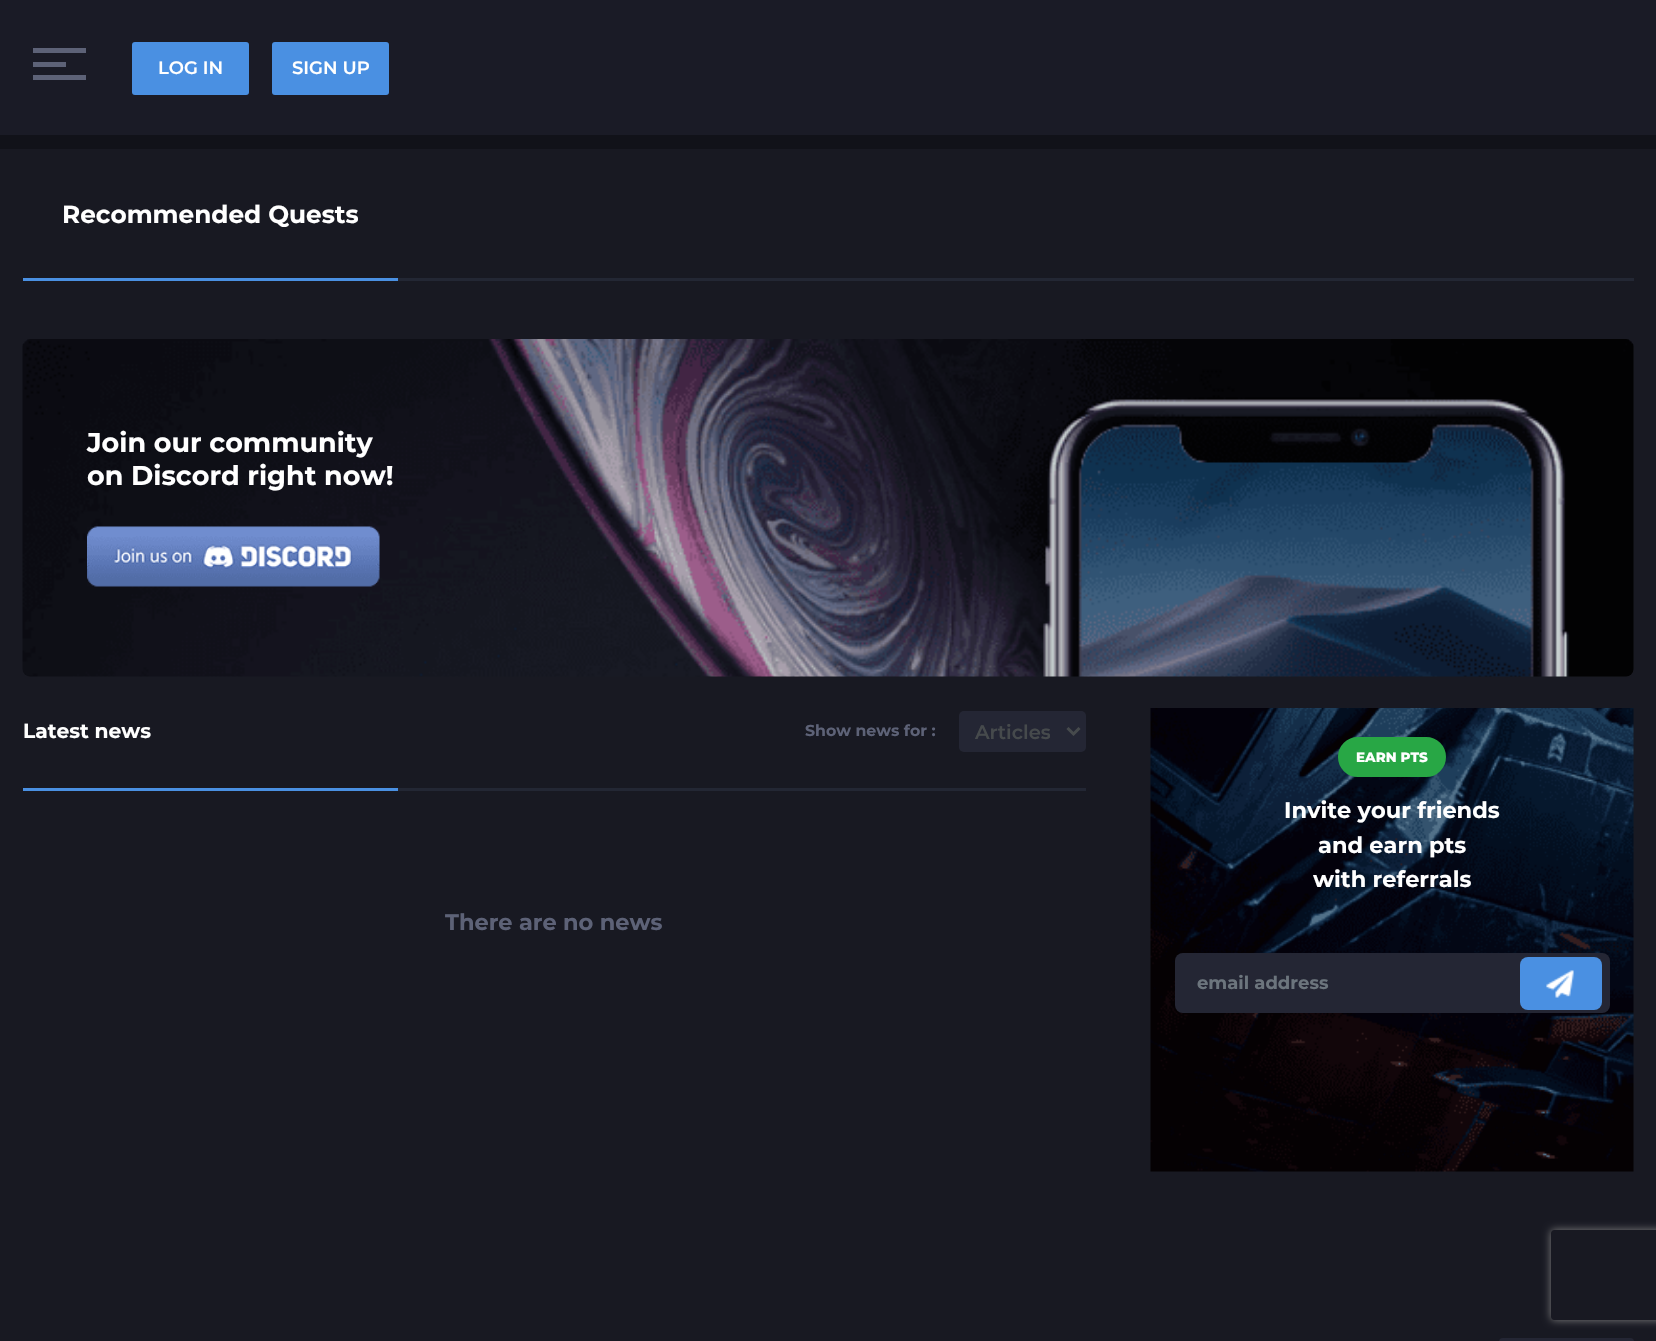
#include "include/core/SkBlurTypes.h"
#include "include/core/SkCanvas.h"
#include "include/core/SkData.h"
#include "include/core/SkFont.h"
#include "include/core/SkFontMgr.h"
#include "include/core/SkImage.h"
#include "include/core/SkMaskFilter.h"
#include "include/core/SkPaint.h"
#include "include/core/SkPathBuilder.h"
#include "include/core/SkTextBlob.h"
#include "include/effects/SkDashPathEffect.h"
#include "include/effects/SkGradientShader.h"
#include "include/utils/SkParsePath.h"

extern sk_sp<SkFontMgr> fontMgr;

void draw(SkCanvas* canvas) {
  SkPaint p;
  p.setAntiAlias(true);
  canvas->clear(SkColorSetRGB(17, 18, 25));
  p.setColor(SkColorSetRGB(26, 27, 38));
  canvas->drawRect(SkRect::MakeLTRB(0, 0, 1656, 135), p);
  p.setColor(SkColorSetRGB(93, 98, 119));
  canvas->drawRect(SkRect::MakeLTRB(33, 48, 86, 53), p);
  canvas->drawRect(SkRect::MakeLTRB(33, 62, 66, 67), p);
  canvas->drawRect(SkRect::MakeLTRB(33, 75, 86, 80), p);
  p.setColor(SkColorSetRGB(74, 144, 226));
  canvas->drawRoundRect(SkRect::MakeLTRB(132, 42, 249, 95), 3, 3, p);
  canvas->drawRoundRect(SkRect::MakeLTRB(272, 42, 389, 95), 3, 3, p);
  p.setColor(SkColorSetRGB(24, 25, 34));
  canvas->drawRect(SkRect::MakeLTRB(0, 149, 1656, 1341), p);
  p.setColor(SkColorSetRGB(74, 144, 226));
  canvas->drawRect(SkRect::MakeLTRB(23, 278, 398, 281), p);
  p.setColor(SkColorSetRGB(35, 39, 52));
  canvas->drawRect(SkRect::MakeLTRB(398, 278, 1634, 281), p);
  canvas->drawImageRect(SkImages::DeferredFromEncodedData(SkData::MakeFromFileName("images/1.png")), SkRect::MakeLTRB(22, 339, 1634, 677), SkSamplingOptions());
  canvas->drawImageRect(SkImages::DeferredFromEncodedData(SkData::MakeFromFileName("images/2.png")), SkRect::MakeLTRB(87, 526, 380, 587), SkSamplingOptions());
  p.setColor(SkColorSetRGB(36, 38, 52));
  canvas->drawRoundRect(SkRect::MakeLTRB(959, 711, 1086, 752), 5, 5, p);
  p.setStyle(SkPaint::kStroke_Style);
  p.setStrokeWidth(3);
  p.setColor(SkColorSetRGB(70, 74, 76));
  canvas->drawPath(SkPathBuilder().moveTo(1067.5f, 728).lineTo(1073.5f, 734).lineTo(1079.5f, 728).detach(), p);
  p.setStyle(SkPaint::kFill_Style);
  p.setColor(SkColorSetRGB(74, 144, 226));
  canvas->drawRect(SkRect::MakeLTRB(23, 788, 398, 791), p);
  p.setColor(SkColorSetRGB(35, 39, 52));
  canvas->drawRect(SkRect::MakeLTRB(398, 788, 1086, 791), p);
  canvas->drawImageRect(SkImages::DeferredFromEncodedData(SkData::MakeFromFileName("images/3.png")), SkRect::MakeLTRB(1150, 708, 1634, 1172), SkSamplingOptions());
  p.setColor(SkColorSetRGB(40, 167, 69));
  canvas->drawRoundRect(SkRect::MakeLTRB(1339, 738, 1445, 776), 19, 19, p);
  p.setStyle(SkPaint::kStroke_Style);
  p.setStrokeWidth(2);
  canvas->drawRoundRect(SkRect::MakeLTRB(1339, 738, 1445, 776), 19, 19, p);
  p.setStyle(SkPaint::kFill_Style);
  p.setColor(SkColorSetRGB(36, 38, 52));
  canvas->drawRoundRect(SkRect::MakeLTRB(1175, 953, 1610, 1013), 8, 8, p);
  p.setColor(SkColorSetRGB(74, 144, 226));
  canvas->drawRoundRect(SkRect::MakeLTRB(1520, 957, 1602, 1010), 8, 8, p);
  canvas->drawImageRect(SkImages::DeferredFromEncodedData(SkData::MakeFromFileName("images/4.png")), SkRect::MakeLTRB(1546, 970, 1574, 998), SkSamplingOptions());
  p.setColor(SkColorSetRGB(36, 38, 52));
  canvas->drawRoundRect(SkRect::MakeLTRB(1499, 1338, 1634, 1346), 5, 5, p);
  canvas->save();
  canvas->clipPath(SkPathBuilder(SkPathFillType::kEvenOdd).moveTo(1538, 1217).lineTo(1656, 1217).lineTo(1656, 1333).lineTo(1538, 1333).close().moveTo(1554, 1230).lineTo(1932, 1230).cubicTo(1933.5f, 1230, 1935, 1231.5f, 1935, 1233).lineTo(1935, 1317).cubicTo(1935, 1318.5f, 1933.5f, 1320, 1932, 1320).lineTo(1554, 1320).cubicTo(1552.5f, 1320, 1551, 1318.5f, 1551, 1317).lineTo(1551, 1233).cubicTo(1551, 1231.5f, 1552.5f, 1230, 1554, 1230).close().detach(), true);
  p.setColor(SkColorSetRGB(128, 128, 128));
  p.setMaskFilter(SkMaskFilter::MakeBlur(kNormal_SkBlurStyle, 4));
  canvas->drawRoundRect(SkRect::MakeLTRB(1551, 1230, 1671, 1320), 3, 3, p);
  p.setMaskFilter(nullptr);
  canvas->restore();
  SkFont font1(fontMgr->matchFamilyStyle("Montserrat", SkFontStyle(600, SkFontStyle::kNormal_Width, SkFontStyle::kUpright_Slant)), 18);
  font1.setSubpixel(true);
  p.setColor(SK_ColorWHITE);
  canvas->drawString("LOG IN", 158, 74, font1, p);
  canvas->drawString("SIGN UP", 292, 74, font1, p);
  SkFont font2(fontMgr->matchFamilyStyle("Montserrat", SkFontStyle::Bold()), 24.75f);
  font2.setSubpixel(true);
  canvas->drawString("Recommended Quests", 62, 223, font2, p);
  SkFont font3(fontMgr->matchFamilyStyle("Montserrat", SkFontStyle::Bold()), 27);
  font3.setSubpixel(true);
  canvas->drawString("Join our community", 87, 452, font3, p);
  canvas->drawString("on Discord right now!", 87, 485, font3, p);
  SkFont font4(fontMgr->matchFamilyStyle("Montserrat", SkFontStyle::Bold()), 20.25f);
  font4.setSubpixel(true);
  canvas->drawString("Latest news", 23, 738, font4, p);
  SkFont font5(fontMgr->matchFamilyStyle("Montserrat", SkFontStyle::Bold()), 15.75f);
  font5.setSubpixel(true);
  p.setColor(SkColorSetRGB(93, 98, 119));
  canvas->drawString("Show news for :", 805, 736, font5, p);
  canvas->save();
  canvas->clipRect(SkRect::MakeLTRB(975, 717, 1050, 744));
  SkFont font6(fontMgr->matchFamilyStyle("Montserrat", SkFontStyle(600, SkFontStyle::kNormal_Width, SkFontStyle::kUpright_Slant)), 19.5f);
  font6.setSubpixel(true);
  p.setColor(SkColorSetRGB(70, 74, 76));
  canvas->drawString("Articles", 975, 739, font6, p);
  canvas->restore();
  SkFont font7(fontMgr->matchFamilyStyle("Montserrat", SkFontStyle::Bold()), 22.5f);
  font7.setSubpixel(true);
  p.setColor(SkColorSetRGB(93, 98, 119));
  canvas->drawString("There are no news", 445, 930, font7, p);
  SkFont font8(fontMgr->matchFamilyStyle("Montserrat", SkFontStyle(800, SkFontStyle::kNormal_Width, SkFontStyle::kUpright_Slant)), 13.5f);
  font8.setSubpixel(true);
  p.setColor(SK_ColorWHITE);
  canvas->drawString("EARN PTS", 1356, 762, font8, p);
  canvas->drawString("Invite your friends", 1284, 818, font7, p);
  canvas->drawString("and earn pts", 1318, 853, font7, p);
  canvas->drawString("with referrals", 1313, 887, font7, p);
  SkFont font9(fontMgr->matchFamilyStyle("Montserrat", SkFontStyle::Bold()), 18);
  font9.setSubpixel(true);
  p.setColor(SkColorSetRGB(108, 117, 125));
  canvas->drawString("email address", 1197, 989, font9, p);
}
